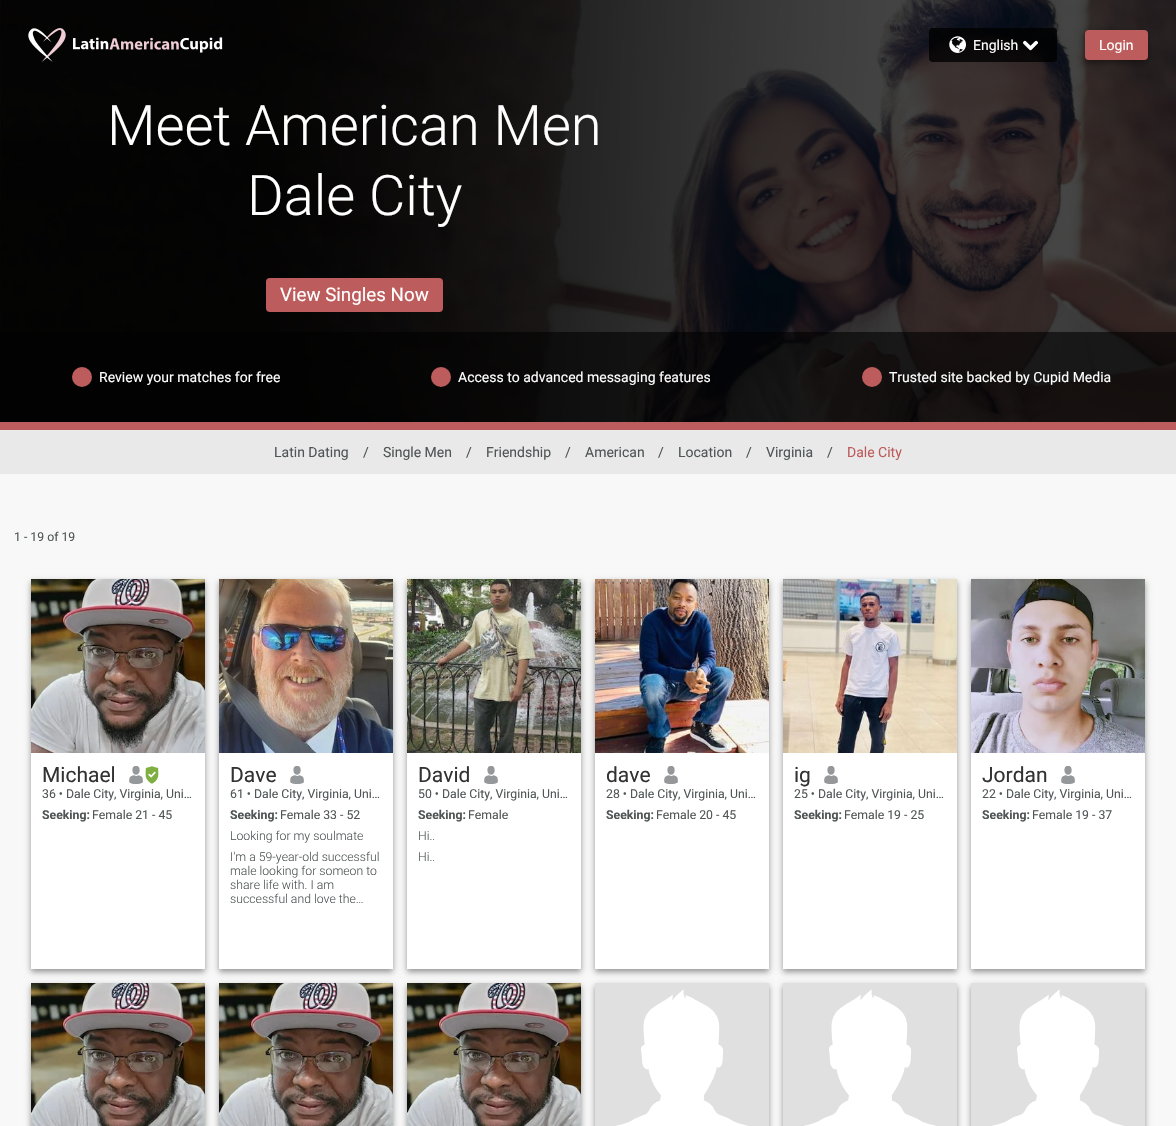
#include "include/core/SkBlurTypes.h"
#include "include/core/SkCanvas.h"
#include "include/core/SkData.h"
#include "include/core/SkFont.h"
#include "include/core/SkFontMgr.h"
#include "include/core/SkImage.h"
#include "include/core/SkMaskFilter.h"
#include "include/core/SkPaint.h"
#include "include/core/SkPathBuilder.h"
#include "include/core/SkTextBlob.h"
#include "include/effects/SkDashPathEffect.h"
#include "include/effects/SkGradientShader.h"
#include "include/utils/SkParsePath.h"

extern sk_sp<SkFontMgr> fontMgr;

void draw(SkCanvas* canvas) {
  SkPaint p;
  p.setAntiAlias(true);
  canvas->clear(SkColorSetRGB(248, 248, 248));
  canvas->drawImageRect(SkImages::DeferredFromEncodedData(SkData::MakeFromFileName("images/5.png")), SkRect::MakeLTRB(0, 0, 1176, 422), SkSamplingOptions());
  canvas->drawImageRect(SkImages::DeferredFromEncodedData(SkData::MakeFromFileName("images/1.png")), SkRect::MakeLTRB(28, 28, 66, 62), SkSamplingOptions());
  canvas->drawImageRect(SkImages::DeferredFromEncodedData(SkData::MakeFromFileName("images/2.png")), SkRect::MakeLTRB(73, 37, 223, 53), SkSamplingOptions());
  p.setColor(SkColorSetARGB(204, 0, 0, 0));
  canvas->drawRoundRect(SkRect::MakeLTRB(929, 28, 1057, 62), 4, 4, p);
  canvas->drawImageRect(SkImages::DeferredFromEncodedData(SkData::MakeFromFileName("images/3.png")), SkRect::MakeLTRB(949, 36, 966, 53), SkSamplingOptions());
  canvas->drawImageRect(SkImages::DeferredFromEncodedData(SkData::MakeFromFileName("images/4.png")), SkRect::MakeLTRB(1023, 40, 1038, 51), SkSamplingOptions());
  p.setColor(SkColorSetARGB(102, 0, 0, 0));
  p.setMaskFilter(SkMaskFilter::MakeBlur(kNormal_SkBlurStyle, 3));
  canvas->drawRoundRect(SkRect::MakeLTRB(1085, 33, 1148, 63), 4, 4, p);
  p.setMaskFilter(nullptr);
  p.setColor(SkColorSetRGB(189, 92, 92));
  canvas->drawRoundRect(SkRect::MakeLTRB(1085, 30, 1148, 60), 4, 4, p);
  canvas->drawRoundRect(SkRect::MakeLTRB(266, 278, 443, 312), 4, 4, p);
  p.setColor(SkColorSetARGB(153, 0, 0, 0));
  canvas->drawRect(SkRect::MakeLTRB(0, 332, 1176, 422), p);
  p.setColor(SkColorSetRGB(189, 92, 92));
  canvas->drawCircle(82, 377, 10, p);
  canvas->drawCircle(441, 377, 10, p);
  canvas->drawCircle(872, 377, 10, p);
  canvas->drawRect(SkRect::MakeLTRB(0, 422, 1176, 430), p);
  p.setColor(SkColorSetRGB(233, 233, 233));
  canvas->drawRect(SkRect::MakeLTRB(0, 430, 1176, 474), p);
  p.setColor(SkColorSetARGB(102, 0, 0, 0));
  p.setMaskFilter(SkMaskFilter::MakeBlur(kNormal_SkBlurStyle, 3));
  canvas->drawRect(SkRect::MakeLTRB(31, 582, 205, 972), p);
  p.setMaskFilter(nullptr);
  p.setColor(SK_ColorWHITE);
  canvas->drawRect(SkRect::MakeLTRB(31, 753, 205, 969), p);
  canvas->drawImageRect(SkImages::DeferredFromEncodedData(SkData::MakeFromFileName("images/6.png")), SkRect::MakeLTRB(31, 579, 205, 753), SkSamplingOptions());
  canvas->drawImageRect(SkImages::DeferredFromEncodedData(SkData::MakeFromFileName("images/7.png")), SkRect::MakeLTRB(129, 766, 143, 784), SkSamplingOptions());
  canvas->drawImageRect(SkImages::DeferredFromEncodedData(SkData::MakeFromFileName("images/8.png")), SkRect::MakeLTRB(145, 766, 159, 784), SkSamplingOptions());
  p.setColor(SkColorSetARGB(102, 0, 0, 0));
  p.setMaskFilter(SkMaskFilter::MakeBlur(kNormal_SkBlurStyle, 3));
  canvas->drawRect(SkRect::MakeLTRB(219, 582, 393, 972), p);
  p.setMaskFilter(nullptr);
  p.setColor(SK_ColorWHITE);
  canvas->drawRect(SkRect::MakeLTRB(219, 753, 393, 969), p);
  canvas->drawImageRect(SkImages::DeferredFromEncodedData(SkData::MakeFromFileName("images/9.png")), SkRect::MakeLTRB(219, 579, 393, 753), SkSamplingOptions());
  canvas->drawImageRect(SkImages::DeferredFromEncodedData(SkData::MakeFromFileName("images/7.png")), SkRect::MakeLTRB(290, 766, 304, 784), SkSamplingOptions());
  p.setColor(SkColorSetARGB(102, 0, 0, 0));
  p.setMaskFilter(SkMaskFilter::MakeBlur(kNormal_SkBlurStyle, 3));
  canvas->drawRect(SkRect::MakeLTRB(407, 582, 581, 972), p);
  p.setMaskFilter(nullptr);
  p.setColor(SK_ColorWHITE);
  canvas->drawRect(SkRect::MakeLTRB(407, 753, 581, 969), p);
  canvas->drawImageRect(SkImages::DeferredFromEncodedData(SkData::MakeFromFileName("images/10.png")), SkRect::MakeLTRB(407, 579, 581, 753), SkSamplingOptions());
  canvas->drawImageRect(SkImages::DeferredFromEncodedData(SkData::MakeFromFileName("images/7.png")), SkRect::MakeLTRB(484, 766, 498, 784), SkSamplingOptions());
  p.setColor(SkColorSetARGB(102, 0, 0, 0));
  p.setMaskFilter(SkMaskFilter::MakeBlur(kNormal_SkBlurStyle, 3));
  canvas->drawRect(SkRect::MakeLTRB(595, 582, 769, 972), p);
  p.setMaskFilter(nullptr);
  p.setColor(SK_ColorWHITE);
  canvas->drawRect(SkRect::MakeLTRB(595, 753, 769, 969), p);
  canvas->drawImageRect(SkImages::DeferredFromEncodedData(SkData::MakeFromFileName("images/11.png")), SkRect::MakeLTRB(595, 579, 769, 753), SkSamplingOptions());
  canvas->drawImageRect(SkImages::DeferredFromEncodedData(SkData::MakeFromFileName("images/7.png")), SkRect::MakeLTRB(664, 766, 678, 784), SkSamplingOptions());
  p.setColor(SkColorSetARGB(102, 0, 0, 0));
  p.setMaskFilter(SkMaskFilter::MakeBlur(kNormal_SkBlurStyle, 3));
  canvas->drawRect(SkRect::MakeLTRB(783, 582, 957, 972), p);
  p.setMaskFilter(nullptr);
  p.setColor(SK_ColorWHITE);
  canvas->drawRect(SkRect::MakeLTRB(783, 753, 957, 969), p);
  canvas->drawImageRect(SkImages::DeferredFromEncodedData(SkData::MakeFromFileName("images/12.png")), SkRect::MakeLTRB(783, 579, 957, 753), SkSamplingOptions());
  canvas->drawImageRect(SkImages::DeferredFromEncodedData(SkData::MakeFromFileName("images/7.png")), SkRect::MakeLTRB(824, 766, 838, 784), SkSamplingOptions());
  p.setColor(SkColorSetARGB(102, 0, 0, 0));
  p.setMaskFilter(SkMaskFilter::MakeBlur(kNormal_SkBlurStyle, 3));
  canvas->drawRect(SkRect::MakeLTRB(971, 582, 1145, 972), p);
  p.setMaskFilter(nullptr);
  p.setColor(SK_ColorWHITE);
  canvas->drawRect(SkRect::MakeLTRB(971, 753, 1145, 969), p);
  canvas->drawImageRect(SkImages::DeferredFromEncodedData(SkData::MakeFromFileName("images/13.png")), SkRect::MakeLTRB(971, 579, 1145, 753), SkSamplingOptions());
  canvas->drawImageRect(SkImages::DeferredFromEncodedData(SkData::MakeFromFileName("images/7.png")), SkRect::MakeLTRB(1061, 766, 1075, 784), SkSamplingOptions());
  p.setColor(SkColorSetARGB(102, 0, 0, 0));
  p.setMaskFilter(SkMaskFilter::MakeBlur(kNormal_SkBlurStyle, 3));
  canvas->drawRect(SkRect::MakeLTRB(31, 986, 205, 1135), p);
  p.setMaskFilter(nullptr);
  canvas->drawImageRect(SkImages::DeferredFromEncodedData(SkData::MakeFromFileName("images/14.png")), SkRect::MakeLTRB(31, 983, 205, 1126), SkSamplingOptions());
  p.setMaskFilter(SkMaskFilter::MakeBlur(kNormal_SkBlurStyle, 3));
  canvas->drawRect(SkRect::MakeLTRB(219, 986, 393, 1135), p);
  p.setMaskFilter(nullptr);
  canvas->drawImageRect(SkImages::DeferredFromEncodedData(SkData::MakeFromFileName("images/14.png")), SkRect::MakeLTRB(219, 983, 393, 1126), SkSamplingOptions());
  p.setMaskFilter(SkMaskFilter::MakeBlur(kNormal_SkBlurStyle, 3));
  canvas->drawRect(SkRect::MakeLTRB(407, 986, 581, 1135), p);
  p.setMaskFilter(nullptr);
  canvas->drawImageRect(SkImages::DeferredFromEncodedData(SkData::MakeFromFileName("images/15.png")), SkRect::MakeLTRB(407, 983, 581, 1126), SkSamplingOptions());
  p.setMaskFilter(SkMaskFilter::MakeBlur(kNormal_SkBlurStyle, 3));
  canvas->drawRect(SkRect::MakeLTRB(595, 986, 769, 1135), p);
  p.setMaskFilter(nullptr);
  p.setColor(SkColorSetRGB(224, 224, 224));
  canvas->drawRect(SkRect::MakeLTRB(595, 983, 769, 1126), p);
  canvas->drawImageRect(SkImages::DeferredFromEncodedData(SkData::MakeFromFileName("images/16.png")), SkRect::MakeLTRB(616, 989, 748, 1126), SkSamplingOptions());
  p.setColor(SkColorSetARGB(102, 0, 0, 0));
  p.setMaskFilter(SkMaskFilter::MakeBlur(kNormal_SkBlurStyle, 3));
  canvas->drawRect(SkRect::MakeLTRB(783, 986, 957, 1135), p);
  p.setMaskFilter(nullptr);
  p.setColor(SkColorSetRGB(224, 224, 224));
  canvas->drawRect(SkRect::MakeLTRB(783, 983, 957, 1126), p);
  canvas->drawImageRect(SkImages::DeferredFromEncodedData(SkData::MakeFromFileName("images/17.png")), SkRect::MakeLTRB(804, 989, 936, 1126), SkSamplingOptions());
  p.setColor(SkColorSetARGB(102, 0, 0, 0));
  p.setMaskFilter(SkMaskFilter::MakeBlur(kNormal_SkBlurStyle, 3));
  canvas->drawRect(SkRect::MakeLTRB(971, 986, 1145, 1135), p);
  p.setMaskFilter(nullptr);
  p.setColor(SkColorSetRGB(224, 224, 224));
  canvas->drawRect(SkRect::MakeLTRB(971, 983, 1145, 1126), p);
  canvas->drawImageRect(SkImages::DeferredFromEncodedData(SkData::MakeFromFileName("images/18.png")), SkRect::MakeLTRB(992, 989, 1124, 1126), SkSamplingOptions());
  SkFont font1(fontMgr->matchFamilyStyle("Roboto", SkFontStyle::Normal()), 14);
  font1.setSubpixel(true);
  p.setColor(SK_ColorWHITE);
  canvas->drawString("English", 973, 50, font1, p);
  canvas->drawString("Login", 1099, 50, font1, p);
  SkFont font2(fontMgr->matchFamilyStyle("Roboto", SkFontStyle(300, SkFontStyle::kNormal_Width, SkFontStyle::kUpright_Slant)), 56);
  font2.setSubpixel(true);
  canvas->drawString("Meet American Men", 107, 145, font2, p);
  canvas->drawString("Dale City", 247, 215, font2, p);
  SkFont font3(fontMgr->matchFamilyStyle("Roboto", SkFontStyle::Normal()), 18.75f);
  font3.setSubpixel(true);
  canvas->drawString("View Singles Now", 280, 301, font3, p);
  canvas->drawString("Review your matches for free", 99, 382, font1, p);
  canvas->drawString("Access to advanced messaging features", 458, 382, font1, p);
  canvas->drawString("Trusted site backed by Cupid Media", 889, 382, font1, p);
  p.setColor(SkColorSetRGB(80, 86, 86));
  canvas->drawString("Latin Dating", 274, 457, font1, p);
  canvas->drawString("/", 363, 457, font1, p);
  canvas->drawString("Single Men", 383, 457, font1, p);
  canvas->drawString("/", 466, 457, font1, p);
  canvas->drawString("Friendship", 486, 457, font1, p);
  canvas->drawString("/", 565, 457, font1, p);
  canvas->drawString("American", 585, 457, font1, p);
  canvas->drawString("/", 658, 457, font1, p);
  canvas->drawString("Location", 678, 457, font1, p);
  canvas->drawString("/", 746, 457, font1, p);
  canvas->drawString("Virginia", 766, 457, font1, p);
  canvas->drawString("/", 827, 457, font1, p);
  p.setColor(SkColorSetRGB(189, 92, 92));
  canvas->drawString("Dale City", 847, 457, font1, p);
  SkFont font4(fontMgr->matchFamilyStyle("Roboto", SkFontStyle::Normal()), 12.25f);
  font4.setSubpixel(true);
  p.setColor(SkColorSetRGB(80, 86, 86));
  canvas->drawString("1 - 19 of 19", 14, 541, font4, p);
  SkFont font5(fontMgr->matchFamilyStyle("Roboto", SkFontStyle::Normal()), 21);
  font5.setSubpixel(true);
  p.setColor(SkColorSetRGB(50, 50, 50));
  canvas->drawString("Michael", 42, 782, font5, p);
  p.setColor(SkColorSetRGB(80, 86, 86));
  canvas->drawString("36 • Dale City, Virginia, Uni…", 42, 798, font4, p);
  SkFont font6(fontMgr->matchFamilyStyle("Roboto", SkFontStyle::Bold()), 12.25f);
  font6.setSubpixel(true);
  canvas->drawString("Seeking:", 42, 819, font6, p);
  canvas->drawString("Female 21 - 45", 92, 819, font4, p);
  p.setColor(SkColorSetRGB(50, 50, 50));
  canvas->drawString("Dave", 230, 782, font5, p);
  p.setColor(SkColorSetRGB(80, 86, 86));
  canvas->drawString("61 • Dale City, Virginia, Uni…", 230, 798, font4, p);
  canvas->drawString("Seeking:", 230, 819, font6, p);
  canvas->drawString("Female 33 - 52", 280, 819, font4, p);
  SkFont font7(fontMgr->matchFamilyStyle("Roboto", SkFontStyle(300, SkFontStyle::kNormal_Width, SkFontStyle::kUpright_Slant)), 12.25f);
  font7.setSubpixel(true);
  canvas->drawString("Looking for my soulmate", 230, 840, font7, p);
  canvas->drawString("I'm a 59-year-old successful", 230, 861, font7, p);
  canvas->drawString("male looking for someon to", 230, 875, font7, p);
  canvas->drawString("share life with. I am", 230, 889, font7, p);
  canvas->drawString("successful and love the…", 230, 903, font7, p);
  p.setColor(SkColorSetRGB(50, 50, 50));
  canvas->drawString("David", 418, 782, font5, p);
  p.setColor(SkColorSetRGB(80, 86, 86));
  canvas->drawString("50 • Dale City, Virginia, Uni…", 418, 798, font4, p);
  canvas->drawString("Seeking:", 418, 819, font6, p);
  canvas->drawString("Female", 468, 819, font4, p);
  canvas->drawString("Hi..", 418, 840, font7, p);
  canvas->drawString("Hi..", 418, 861, font7, p);
  p.setColor(SkColorSetRGB(50, 50, 50));
  canvas->drawString("dave", 606, 782, font5, p);
  p.setColor(SkColorSetRGB(80, 86, 86));
  canvas->drawString("28 • Dale City, Virginia, Uni…", 606, 798, font4, p);
  canvas->drawString("Seeking:", 606, 819, font6, p);
  canvas->drawString("Female 20 - 45", 656, 819, font4, p);
  p.setColor(SkColorSetRGB(50, 50, 50));
  canvas->drawString("ig", 794, 782, font5, p);
  p.setColor(SkColorSetRGB(80, 86, 86));
  canvas->drawString("25 • Dale City, Virginia, Uni…", 794, 798, font4, p);
  canvas->drawString("Seeking:", 794, 819, font6, p);
  canvas->drawString("Female 19 - 25", 844, 819, font4, p);
  p.setColor(SkColorSetRGB(50, 50, 50));
  canvas->drawString("Jordan", 982, 782, font5, p);
  p.setColor(SkColorSetRGB(80, 86, 86));
  canvas->drawString("22 • Dale City, Virginia, Uni…", 982, 798, font4, p);
  canvas->drawString("Seeking:", 982, 819, font6, p);
  canvas->drawString("Female 19 - 37", 1032, 819, font4, p);
}
